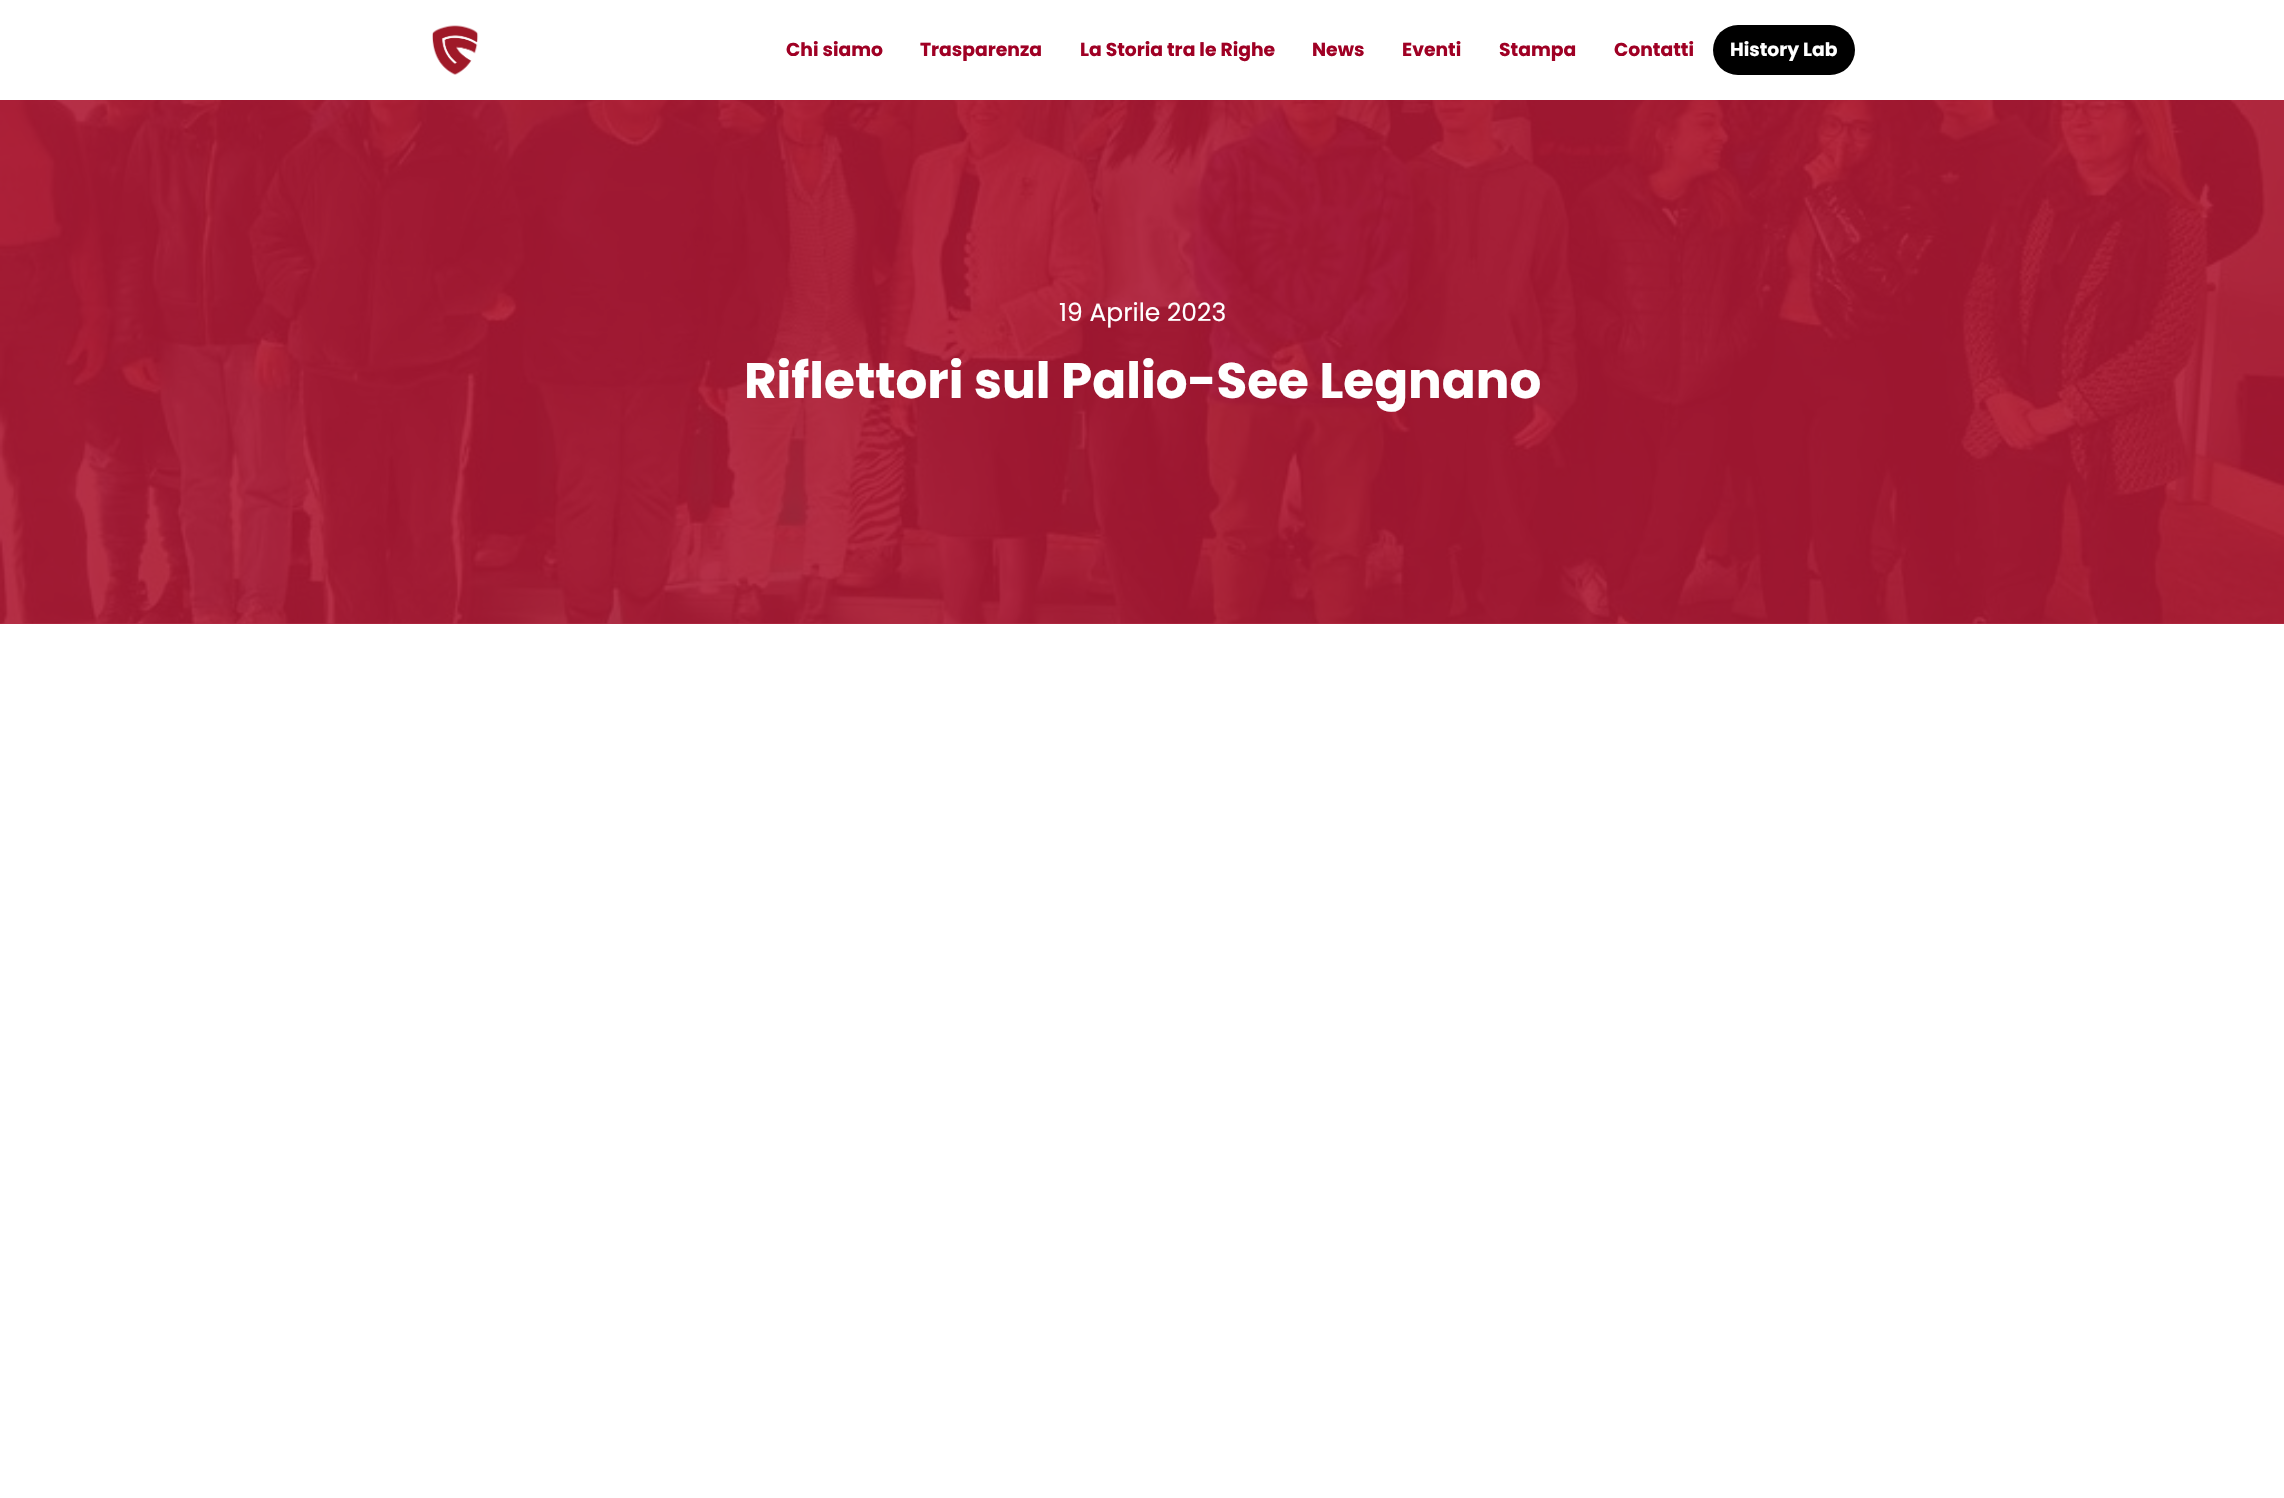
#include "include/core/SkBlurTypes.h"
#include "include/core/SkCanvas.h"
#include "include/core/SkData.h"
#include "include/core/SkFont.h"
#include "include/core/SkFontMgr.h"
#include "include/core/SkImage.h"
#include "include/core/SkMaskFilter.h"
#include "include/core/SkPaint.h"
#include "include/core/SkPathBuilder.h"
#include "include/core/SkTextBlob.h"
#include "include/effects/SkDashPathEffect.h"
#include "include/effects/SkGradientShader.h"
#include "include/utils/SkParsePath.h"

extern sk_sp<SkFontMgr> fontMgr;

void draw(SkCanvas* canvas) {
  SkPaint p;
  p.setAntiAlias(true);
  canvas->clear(SK_ColorWHITE);
  p.setColor(SkColorSetRGB(181, 47, 72));
  canvas->drawRect(SkRect::MakeLTRB(0, 623, 2284, 624), p);
  canvas->drawImageRect(SkImages::DeferredFromEncodedData(SkData::MakeFromFileName("images/1.png")), SkRect::MakeLTRB(432, 25, 479, 75), SkSamplingOptions());
  p.setColor(SK_ColorBLACK);
  canvas->drawRoundRect(SkRect::MakeLTRB(1713, 25, 1855, 75), 25, 25, p);
  canvas->drawImageRect(SkImages::DeferredFromEncodedData(SkData::MakeFromFileName("images/2.png")), SkRect::MakeLTRB(0, 100, 2284, 624), SkSamplingOptions());
  SkFont font1(fontMgr->matchFamilyStyle("Poppins", SkFontStyle::Bold()), 18.75f);
  font1.setSubpixel(true);
  p.setColor(SkColorSetRGB(159, 0, 36));
  canvas->drawString("Chi siamo", 786, 56, font1, p);
  canvas->drawString("Trasparenza", 920, 56, font1, p);
  canvas->drawString("La Storia tra le Righe", 1080, 56, font1, p);
  canvas->drawString("News", 1312, 56, font1, p);
  canvas->drawString("Eventi", 1402, 56, font1, p);
  canvas->drawString("Stampa", 1499, 56, font1, p);
  canvas->drawString("Contatti", 1614, 56, font1, p);
  p.setColor(SK_ColorWHITE);
  canvas->drawString("History Lab", 1730, 56, font1, p);
  SkFont font2(fontMgr->matchFamilyStyle("Poppins", SkFontStyle::Normal()), 25);
  font2.setSubpixel(true);
  canvas->drawString("19 Aprile 2023", 1059, 321, font2, p);
  SkFont font3(fontMgr->matchFamilyStyle("Poppins", SkFontStyle::Bold()), 50);
  font3.setSubpixel(true);
  canvas->drawString("Riflettori sul Palio-See Legnano", 744, 398, font3, p);
}
